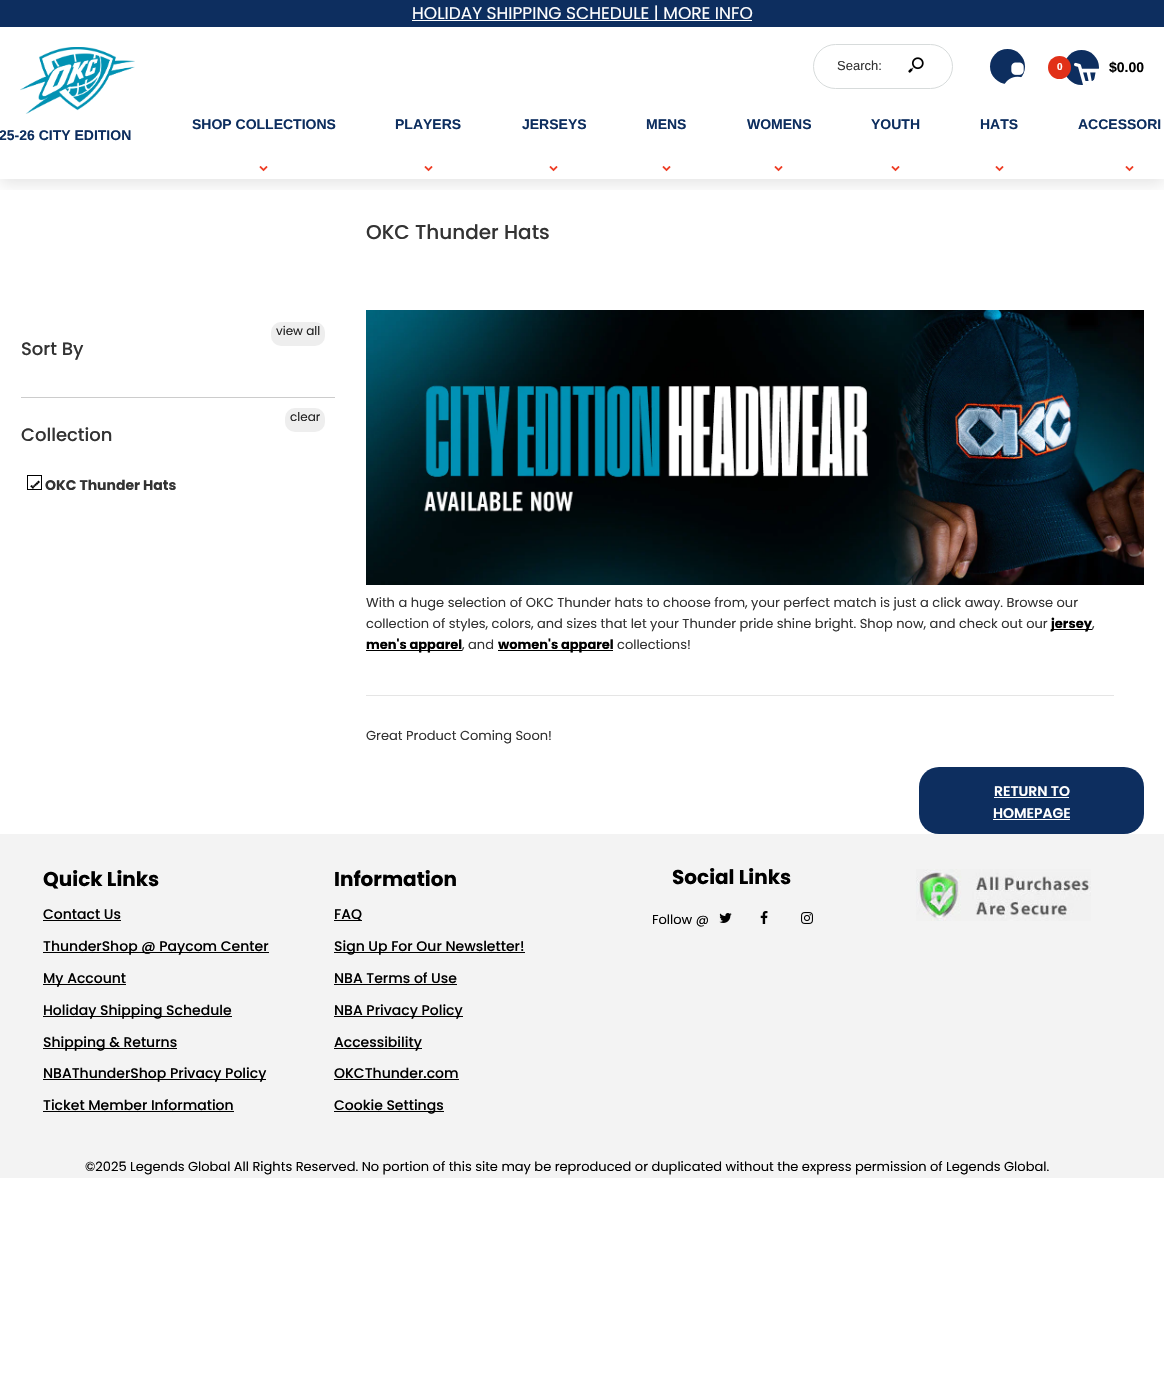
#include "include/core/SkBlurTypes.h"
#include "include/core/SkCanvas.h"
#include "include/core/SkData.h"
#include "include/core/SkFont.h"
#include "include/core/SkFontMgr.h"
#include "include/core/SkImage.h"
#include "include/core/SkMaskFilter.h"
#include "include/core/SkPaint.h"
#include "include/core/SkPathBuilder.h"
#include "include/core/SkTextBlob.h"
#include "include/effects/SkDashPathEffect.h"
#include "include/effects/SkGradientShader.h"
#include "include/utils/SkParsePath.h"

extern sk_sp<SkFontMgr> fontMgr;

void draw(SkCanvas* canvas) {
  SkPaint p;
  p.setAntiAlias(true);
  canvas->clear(SK_ColorWHITE);
  p.setColor(SkColorSetRGB(13, 46, 95));
  canvas->drawRect(SkRect::MakeLTRB(0, 0, 1164, 27), p);
  p.setColor(SK_ColorWHITE);
  canvas->drawRect(SkRect::MakeLTRB(412, 20, 752, 21), p);
  canvas->save();
  canvas->clipRect(SkRect::MakeLTRB(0, 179, 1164, 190));
  p.setColor(SkColorSetARGB(26, 0, 0, 0));
  p.setMaskFilter(SkMaskFilter::MakeBlur(kNormal_SkBlurStyle, 7.5f));
  canvas->drawRect(SkRect::MakeLTRB(0, 92, 1164, 184), p);
  p.setMaskFilter(nullptr);
  canvas->restore();
  p.setColor(SK_ColorWHITE);
  canvas->drawRect(SkRect::MakeLTRB(0, 82, 1164, 87), p);
  canvas->drawImageRect(SkImages::DeferredFromEncodedData(SkData::MakeFromFileName("images/1.png")), SkRect::MakeLTRB(20, 47, 135, 114), SkSamplingOptions());
  p.setStyle(SkPaint::kStroke_Style);
  p.setStrokeWidth(1);
  p.setColor(SkColorSetRGB(215, 219, 219));
  canvas->drawRoundRect(SkRect::MakeLTRB(813.5f, 44.5f, 952.5f, 88.5f), 22, 22, p);
  canvas->drawImageRect(SkImages::DeferredFromEncodedData(SkData::MakeFromFileName("images/2.png")), SkRect::MakeLTRB(908, 57, 924, 73), SkSamplingOptions());
  p.setStyle(SkPaint::kFill_Style);
  p.setColor(SkColorSetRGB(13, 46, 95));
  canvas->drawCircle(1007.5f, 66.5f, 17.5f, p);
  canvas->drawImageRect(SkImages::DeferredFromEncodedData(SkData::MakeFromFileName("images/3.png")), SkRect::MakeLTRB(1004, 62, 1024, 84), SkSamplingOptions());
  canvas->drawCircle(1081.5f, 67.5f, 17.5f, p);
  p.setColor(SkColorSetRGB(225, 48, 24));
  canvas->drawCircle(1059.5f, 67.5f, 11.5f, p);
  canvas->drawImageRect(SkImages::DeferredFromEncodedData(SkData::MakeFromFileName("images/4.png")), SkRect::MakeLTRB(1074, 62, 1099, 85), SkSamplingOptions());
  canvas->drawImageRect(SkImages::DeferredFromEncodedData(SkData::MakeFromFileName("images/5.png")), SkRect::MakeLTRB(259, 166, 268, 172), SkSamplingOptions());
  canvas->drawImageRect(SkImages::DeferredFromEncodedData(SkData::MakeFromFileName("images/5.png")), SkRect::MakeLTRB(424, 166, 433, 172), SkSamplingOptions());
  canvas->drawImageRect(SkImages::DeferredFromEncodedData(SkData::MakeFromFileName("images/5.png")), SkRect::MakeLTRB(549, 166, 558, 172), SkSamplingOptions());
  canvas->drawImageRect(SkImages::DeferredFromEncodedData(SkData::MakeFromFileName("images/5.png")), SkRect::MakeLTRB(662, 166, 671, 172), SkSamplingOptions());
  canvas->drawImageRect(SkImages::DeferredFromEncodedData(SkData::MakeFromFileName("images/5.png")), SkRect::MakeLTRB(774, 166, 783, 172), SkSamplingOptions());
  canvas->drawImageRect(SkImages::DeferredFromEncodedData(SkData::MakeFromFileName("images/5.png")), SkRect::MakeLTRB(891, 166, 900, 172), SkSamplingOptions());
  canvas->drawImageRect(SkImages::DeferredFromEncodedData(SkData::MakeFromFileName("images/5.png")), SkRect::MakeLTRB(995, 166, 1004, 172), SkSamplingOptions());
  canvas->drawImageRect(SkImages::DeferredFromEncodedData(SkData::MakeFromFileName("images/5.png")), SkRect::MakeLTRB(1125, 166, 1134, 172), SkSamplingOptions());
  p.setColor(SkColorSetRGB(204, 204, 204));
  canvas->drawRect(SkRect::MakeLTRB(21, 397, 335, 398), p);
  p.setColor(SkColorSetRGB(238, 238, 238));
  canvas->drawRoundRect(SkRect::MakeLTRB(271, 322, 325, 346), 10, 10, p);
  canvas->drawRoundRect(SkRect::MakeLTRB(285, 408, 325, 432), 10, 10, p);
  p.setStyle(SkPaint::kStroke_Style);
  p.setColor(SK_ColorBLACK);
  canvas->drawRect(SkRect::MakeLTRB(27.5f, 475.5f, 41.5f, 489.5f), p);
  p.setStyle(SkPaint::kFill_Style);
  canvas->drawPath(SkPathBuilder().moveTo(38.5f, 480.5f).lineTo(40, 482).lineTo(38.5f, 483.5f).lineTo(37, 482).close().detach(), p);
  canvas->drawPath(SkPathBuilder().moveTo(37, 482).lineTo(38.5f, 483.5f).lineTo(37, 485).lineTo(35.5f, 483.5f).close().detach(), p);
  canvas->drawPath(SkPathBuilder().moveTo(35.5f, 483.5f).lineTo(37, 485).lineTo(35.5f, 486).lineTo(34, 485).close().detach(), p);
  canvas->drawPath(SkPathBuilder().moveTo(34, 485).lineTo(35.5f, 486).lineTo(34, 487.5f).lineTo(33, 486).close().detach(), p);
  canvas->drawPath(SkPathBuilder().moveTo(33, 486).lineTo(34, 487.5f).lineTo(33, 489).lineTo(31.5f, 487.5f).close().detach(), p);
  canvas->drawPath(SkPathBuilder().moveTo(31.5f, 485).lineTo(33, 486).lineTo(31.5f, 487.5f).lineTo(30, 486).close().detach(), p);
  p.setColor(SK_ColorWHITE);
  canvas->drawPath(SkPathBuilder().moveTo(30, 483.5f).lineTo(31.5f, 485).lineTo(30, 486).lineTo(28.5f, 485).close().detach(), p);
  canvas->drawImageRect(SkImages::DeferredFromEncodedData(SkData::MakeFromFileName("images/6.png")), SkRect::MakeLTRB(366, 310, 1144, 585), SkSamplingOptions());
  p.setColor(SK_ColorBLACK);
  canvas->drawRect(SkRect::MakeLTRB(1051, 629, 1092, 630), p);
  canvas->drawRect(SkRect::MakeLTRB(366, 650, 462, 651), p);
  canvas->drawRect(SkRect::MakeLTRB(498, 650, 613, 651), p);
  p.setColor(SkColorSetRGB(229, 229, 229));
  canvas->drawRect(SkRect::MakeLTRB(366, 695, 1114, 696), p);
  p.setColor(SkColorSetRGB(13, 46, 95));
  canvas->drawRoundRect(SkRect::MakeLTRB(919, 767, 1144, 834), 20, 20, p);
  p.setColor(SK_ColorWHITE);
  canvas->drawRect(SkRect::MakeLTRB(994, 797, 1069, 798), p);
  canvas->drawRect(SkRect::MakeLTRB(993, 819, 1070, 820), p);
  p.setColor(SkColorSetRGB(243, 243, 243));
  canvas->drawRect(SkRect::MakeLTRB(0, 834, 1164, 1178), p);
  p.setColor(SK_ColorBLACK);
  canvas->drawRect(SkRect::MakeLTRB(43, 920, 121, 921), p);
  canvas->drawRect(SkRect::MakeLTRB(43, 952, 269, 953), p);
  canvas->drawRect(SkRect::MakeLTRB(43, 984, 126, 985), p);
  canvas->drawRect(SkRect::MakeLTRB(43, 1016, 232, 1017), p);
  canvas->drawRect(SkRect::MakeLTRB(43, 1048, 177, 1049), p);
  canvas->drawRect(SkRect::MakeLTRB(43, 1079, 266, 1080), p);
  canvas->drawRect(SkRect::MakeLTRB(43, 1111, 234, 1112), p);
  canvas->drawRect(SkRect::MakeLTRB(334, 920, 362, 921), p);
  canvas->drawRect(SkRect::MakeLTRB(334, 952, 525, 953), p);
  canvas->drawRect(SkRect::MakeLTRB(334, 984, 457, 985), p);
  canvas->drawRect(SkRect::MakeLTRB(334, 1016, 463, 1017), p);
  canvas->drawRect(SkRect::MakeLTRB(334, 1048, 422, 1049), p);
  canvas->drawRect(SkRect::MakeLTRB(334, 1079, 459, 1080), p);
  canvas->drawRect(SkRect::MakeLTRB(334, 1111, 444, 1112), p);
  canvas->drawImageRect(SkImages::DeferredFromEncodedData(SkData::MakeFromFileName("images/7.png")), SkRect::MakeLTRB(719, 913, 732, 923), SkSamplingOptions());
  canvas->drawImageRect(SkImages::DeferredFromEncodedData(SkData::MakeFromFileName("images/8.png")), SkRect::MakeLTRB(760, 911, 768, 924), SkSamplingOptions());
  canvas->drawImageRect(SkImages::DeferredFromEncodedData(SkData::MakeFromFileName("images/9.png")), SkRect::MakeLTRB(801, 912, 813, 924), SkSamplingOptions());
  canvas->drawImageRect(SkImages::DeferredFromEncodedData(SkData::MakeFromFileName("images/10.png")), SkRect::MakeLTRB(916, 869, 1091, 921), SkSamplingOptions());
  SkFont font1(fontMgr->matchFamilyStyle("Poppins", SkFontStyle::Normal()), 17);
  font1.setSubpixel(true);
  p.setColor(SK_ColorWHITE);
  canvas->drawString("HOLIDAY SHIPPING SCHEDULE | MORE INFO", 412, 19, font1, p);
  SkFont font2(fontMgr->matchFamilyStyle("Liberation Sans", SkFontStyle::Normal()), 13);
  font2.setSubpixel(true);
  p.setColor(SkColorSetRGB(51, 51, 51));
  canvas->drawString("Search:", 837, 70, font2, p);
  SkFont font3(fontMgr->matchFamilyStyle("Liberation Sans", SkFontStyle::Bold()), 10);
  font3.setSubpixel(true);
  p.setColor(SK_ColorWHITE);
  canvas->drawString("0", 1057, 70, font3, p);
  SkFont font4(fontMgr->matchFamilyStyle("Liberation Sans", SkFontStyle::Bold()), 14);
  font4.setSubpixel(true);
  p.setColor(SK_ColorBLACK);
  canvas->drawString("$0.00", 1109, 72, font4, p);
  p.setColor(SkColorSetRGB(13, 46, 95));
  canvas->drawString("SHOP COLLECTIONS", 192, 129, font4, p);
  canvas->drawString("PLAYERS", 395, 129, font4, p);
  canvas->drawString("JERSEYS", 522, 129, font4, p);
  canvas->drawString("MENS", 646, 129, font4, p);
  canvas->drawString("WOMENS", 747, 129, font4, p);
  canvas->drawString("YOUTH", 871, 129, font4, p);
  canvas->drawString("HATS", 980, 129, font4, p);
  canvas->drawString("ACCESSORI", 1078, 129, font4, p);
  canvas->drawString("25-26 CITY EDITION", -1, 140, font4, p);
  SkFont font5(fontMgr->matchFamilyStyle("Poppins", SkFontStyle(500, SkFontStyle::kNormal_Width, SkFontStyle::kUpright_Slant)), 20);
  font5.setSubpixel(true);
  p.setColor(SkColorSetRGB(51, 51, 51));
  canvas->drawString("OKC Thunder Hats", 366, 239, font5, p);
  SkFont font6(fontMgr->matchFamilyStyle("Poppins", SkFontStyle::Normal()), 12);
  font6.setSubpixel(true);
  p.setColor(SkColorSetRGB(34, 34, 34));
  canvas->drawString("view all", 276, 335, font6, p);
  SkFont font7(fontMgr->matchFamilyStyle("Poppins", SkFontStyle(500, SkFontStyle::kNormal_Width, SkFontStyle::kUpright_Slant)), 18);
  font7.setSubpixel(true);
  p.setColor(SkColorSetRGB(51, 51, 51));
  canvas->drawString("Sort By", 21, 355, font7, p);
  p.setColor(SkColorSetRGB(34, 34, 34));
  canvas->drawString("clear", 290, 421, font6, p);
  SkFont font8(fontMgr->matchFamilyStyle("Poppins", SkFontStyle::Bold()), 14);
  font8.setSubpixel(true);
  p.setColor(SkColorSetRGB(51, 51, 51));
  canvas->drawString("OKC Thunder Hats", 45, 490, font8, p);
  canvas->drawString("Collection", 21, 441, font7, p);
  SkFont font9(fontMgr->matchFamilyStyle("Poppins", SkFontStyle::Normal()), 13);
  font9.setSubpixel(true);
  canvas->drawString("With a huge selection of OKC Thunder hats to choose from, your perfect match is just a click away. Browse our", 366, 607, font9, p);
  canvas->drawString("collection of styles, colors, and sizes that let your Thunder pride shine bright. Shop now, and check out our", 366, 628, font9, p);
  SkFont font10(fontMgr->matchFamilyStyle("Poppins", SkFontStyle::Bold()), 13);
  font10.setSubpixel(true);
  p.setColor(SK_ColorBLACK);
  canvas->drawString("jersey", 1051, 628, font10, p);
  p.setColor(SkColorSetRGB(51, 51, 51));
  canvas->drawString(",", 1092, 628, font9, p);
  p.setColor(SK_ColorBLACK);
  canvas->drawString("men's apparel", 366, 649, font10, p);
  p.setColor(SkColorSetRGB(51, 51, 51));
  canvas->drawString(", and", 462, 649, font9, p);
  p.setColor(SK_ColorBLACK);
  canvas->drawString("women's apparel", 498, 649, font10, p);
  p.setColor(SkColorSetRGB(51, 51, 51));
  canvas->drawString("collections!", 617, 649, font9, p);
  canvas->drawString("Great Product Coming Soon!", 366, 740, font9, p);
  SkFont font11(fontMgr->matchFamilyStyle("Poppins", SkFontStyle(600, SkFontStyle::kNormal_Width, SkFontStyle::kUpright_Slant)), 14);
  font11.setSubpixel(true);
  p.setColor(SK_ColorWHITE);
  canvas->drawString("RETURN TO", 994, 796, font11, p);
  canvas->drawString("HOMEPAGE", 993, 818, font11, p);
  SkFont font12(fontMgr->matchFamilyStyle("Poppins", SkFontStyle::Bold()), 20);
  font12.setSubpixel(true);
  p.setColor(SK_ColorBLACK);
  canvas->drawString("Quick Links", 43, 886, font12, p);
  SkFont font13(fontMgr->matchFamilyStyle("Poppins", SkFontStyle(500, SkFontStyle::kNormal_Width, SkFontStyle::kUpright_Slant)), 14);
  font13.setSubpixel(true);
  canvas->drawString("Contact Us", 43, 919, font13, p);
  canvas->drawString("ThunderShop @ Paycom Center", 43, 951, font13, p);
  canvas->drawString("My Account", 43, 983, font13, p);
  canvas->drawString("Holiday Shipping Schedule", 43, 1015, font13, p);
  canvas->drawString("Shipping & Returns", 43, 1047, font13, p);
  canvas->drawString("NBAThunderShop Privacy Policy", 43, 1078, font13, p);
  canvas->drawString("Ticket Member Information", 43, 1110, font13, p);
  canvas->drawString("Information", 334, 886, font12, p);
  canvas->drawString("FAQ", 334, 919, font13, p);
  canvas->drawString("Sign Up For Our Newsletter!", 334, 951, font13, p);
  canvas->drawString("NBA Terms of Use", 334, 983, font13, p);
  canvas->drawString("NBA Privacy Policy", 334, 1015, font13, p);
  canvas->drawString("Accessibility", 334, 1047, font13, p);
  canvas->drawString("OKCThunder.com", 334, 1078, font13, p);
  canvas->drawString("Cookie Settings", 334, 1110, font13, p);
  canvas->drawString("Social Links", 672, 884, font12, p);
  canvas->drawString("Follow @", 652, 924, font9, p);
  canvas->drawString("©2025 Legends Global All Rights Reserved. No portion of this site may be reproduced or duplicated without the express permission of Legends Global.", 85, 1171, font9, p);
}
